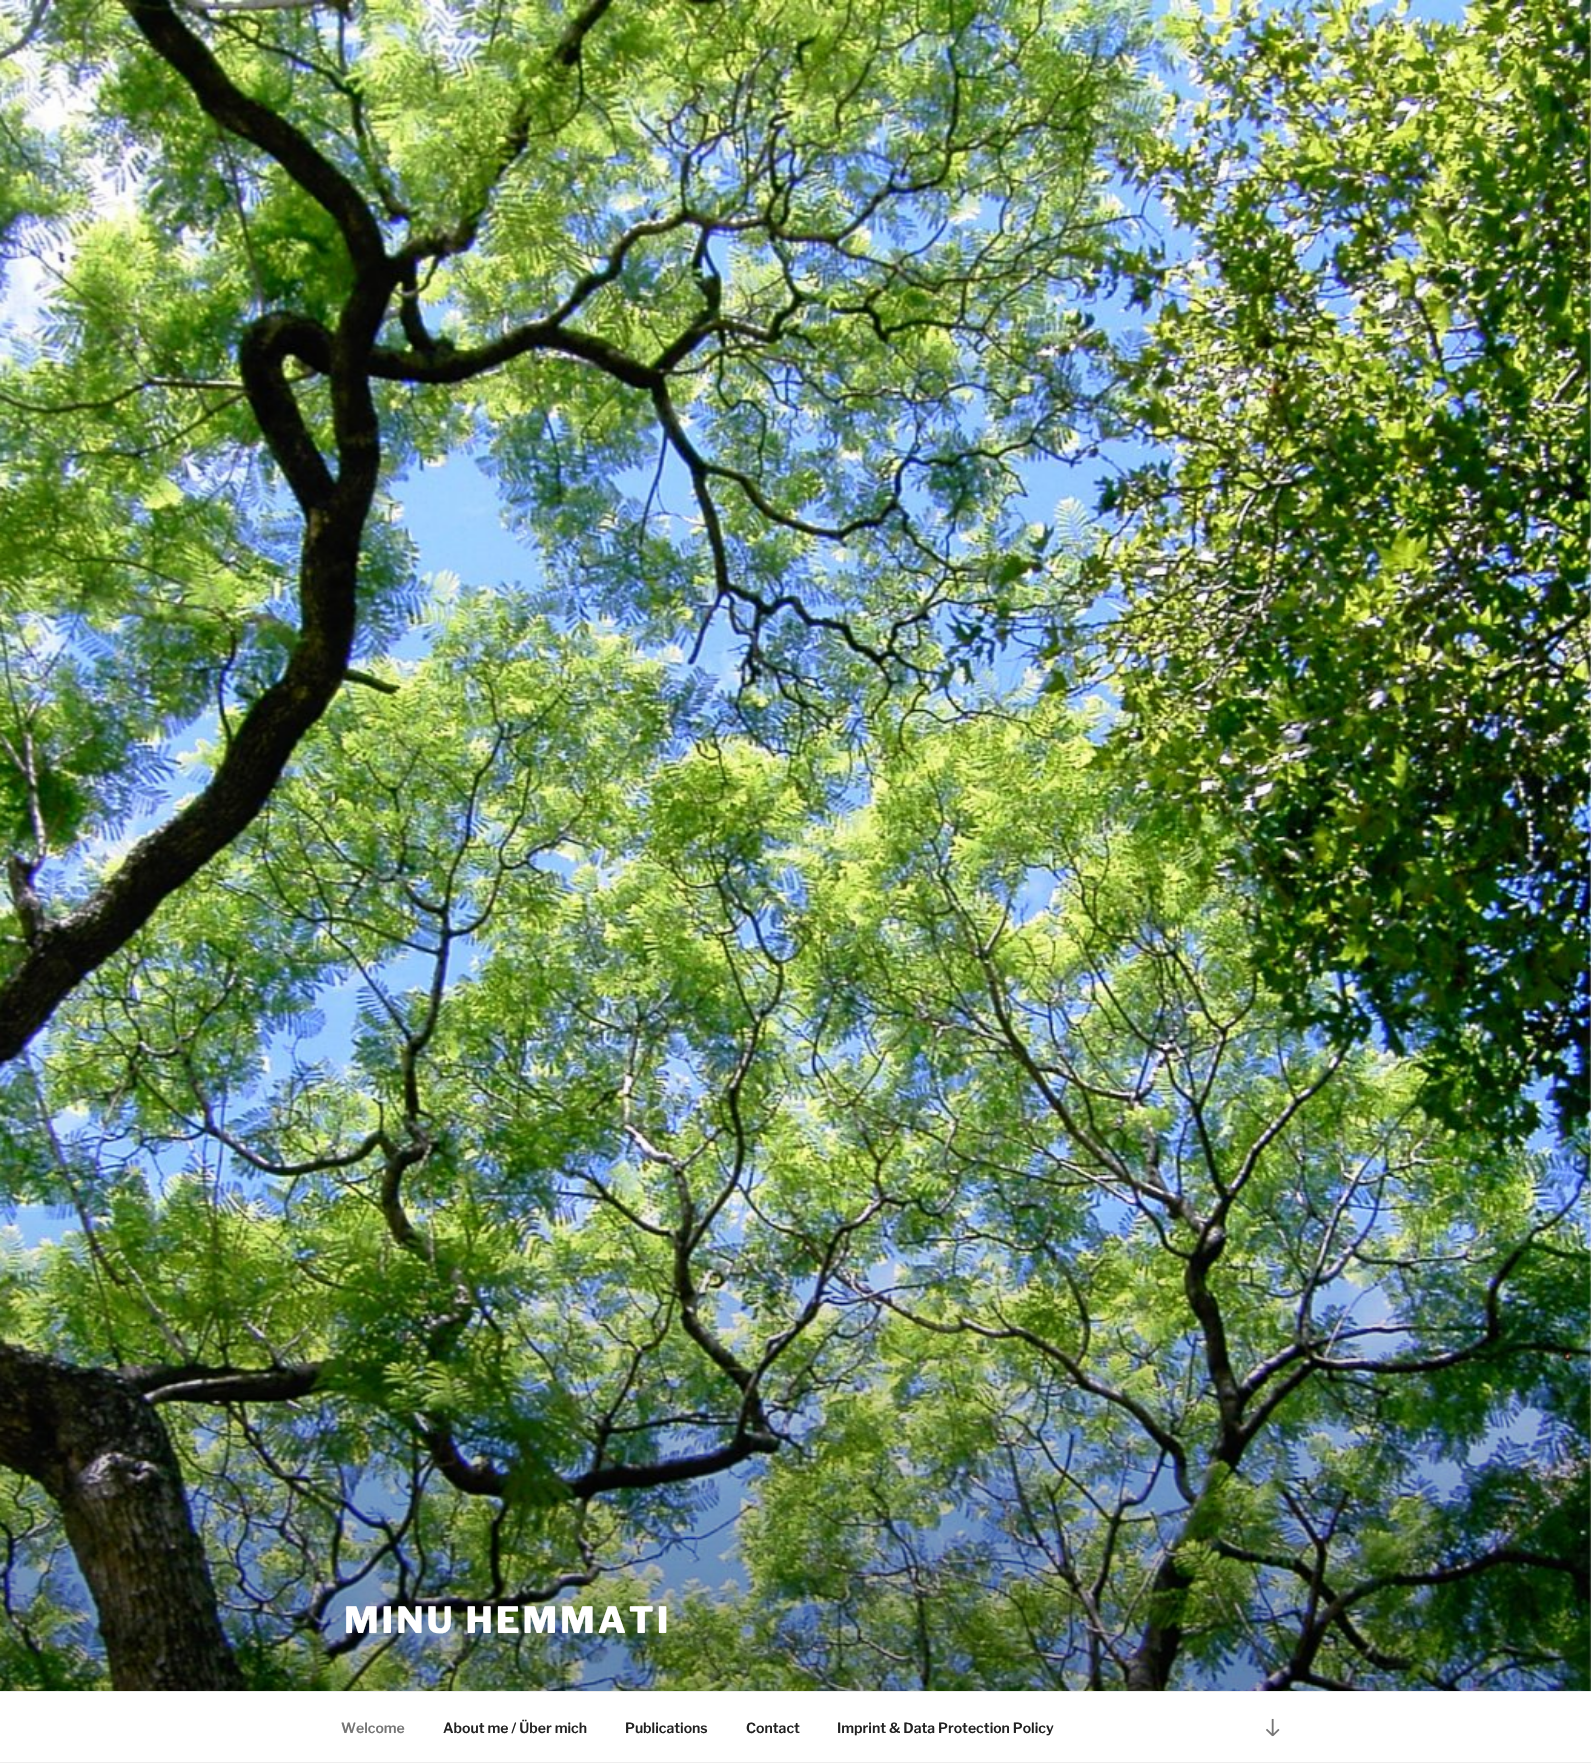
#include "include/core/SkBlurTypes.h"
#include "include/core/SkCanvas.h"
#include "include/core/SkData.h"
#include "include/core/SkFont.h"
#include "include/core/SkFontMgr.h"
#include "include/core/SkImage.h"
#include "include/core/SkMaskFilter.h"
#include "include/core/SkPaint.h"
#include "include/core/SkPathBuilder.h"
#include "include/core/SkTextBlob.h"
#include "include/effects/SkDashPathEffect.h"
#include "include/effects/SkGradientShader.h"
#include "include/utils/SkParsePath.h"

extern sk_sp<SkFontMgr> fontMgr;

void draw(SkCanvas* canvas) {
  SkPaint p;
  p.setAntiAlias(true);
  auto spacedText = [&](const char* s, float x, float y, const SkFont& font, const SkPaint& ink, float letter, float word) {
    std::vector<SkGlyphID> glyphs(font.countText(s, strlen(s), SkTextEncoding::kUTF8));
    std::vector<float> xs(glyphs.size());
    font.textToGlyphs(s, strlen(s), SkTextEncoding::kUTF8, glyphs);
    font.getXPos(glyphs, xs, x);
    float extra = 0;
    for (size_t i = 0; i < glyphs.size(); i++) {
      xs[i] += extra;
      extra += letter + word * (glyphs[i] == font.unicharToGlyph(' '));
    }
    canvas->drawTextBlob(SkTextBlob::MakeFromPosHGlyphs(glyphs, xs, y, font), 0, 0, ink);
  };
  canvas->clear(SK_ColorWHITE);
  canvas->drawImageRect(SkImages::DeferredFromEncodedData(SkData::MakeFromFileName("images/1.png")), SkRect::MakeLTRB(0, 0, 1591, 1691), SkSamplingOptions());
  {
    const SkColor colors[] = {SkColorSetARGB(0, 0, 0, 0), SkColorSetARGB(77, 0, 0, 0), SkColorSetARGB(77, 0, 0, 0)};
    const float stops[] = {0, 0.75f, 1};
    const SkPoint ends[] = {{796, 1181}, {796, 1763}};
    p.setShader(SkGradientShader::MakeLinear(ends, colors, stops, 3, SkTileMode::kClamp));
    p.setAlpha(255);
  }
  canvas->drawRect(SkRect::MakeLTRB(0, 1212, 1591, 1691), p);
  p.setShader(nullptr);
  p.setColor(SkColorSetRGB(238, 238, 238));
  canvas->drawRect(SkRect::MakeLTRB(0, 1691, 1591, 1692), p);
  canvas->drawRect(SkRect::MakeLTRB(0, 1762, 1591, 1763), p);
  canvas->drawImageRect(SkImages::DeferredFromEncodedData(SkData::MakeFromFileName("images/2.png")), SkRect::MakeLTRB(1266, 1718, 1280, 1737), SkSamplingOptions());
  SkFont font1(fontMgr->matchFamilyStyle("Libre Franklin", SkFontStyle(800, SkFontStyle::kNormal_Width, SkFontStyle::kUpright_Slant)), 36);
  font1.setSubpixel(true);
  p.setColor(SK_ColorWHITE);
  spacedText("MINU HEMMATI", 344, 1633, font1, p, 2.9f, 0);
  SkFont font2(fontMgr->matchFamilyStyle("Libre Franklin", SkFontStyle(600, SkFontStyle::kNormal_Width, SkFontStyle::kUpright_Slant)), 14);
  font2.setSubpixel(true);
  p.setColor(SkColorSetRGB(118, 118, 118));
  canvas->drawString("Welcome", 341, 1733, font2, p);
  p.setColor(SkColorSetRGB(34, 34, 34));
  canvas->drawString("About me / Über mich", 443, 1733, font2, p);
  canvas->drawString("Publications", 625, 1733, font2, p);
  canvas->drawString("Contact", 746, 1733, font2, p);
  canvas->drawString("Imprint & Data Protection Policy", 837, 1733, font2, p);
}
